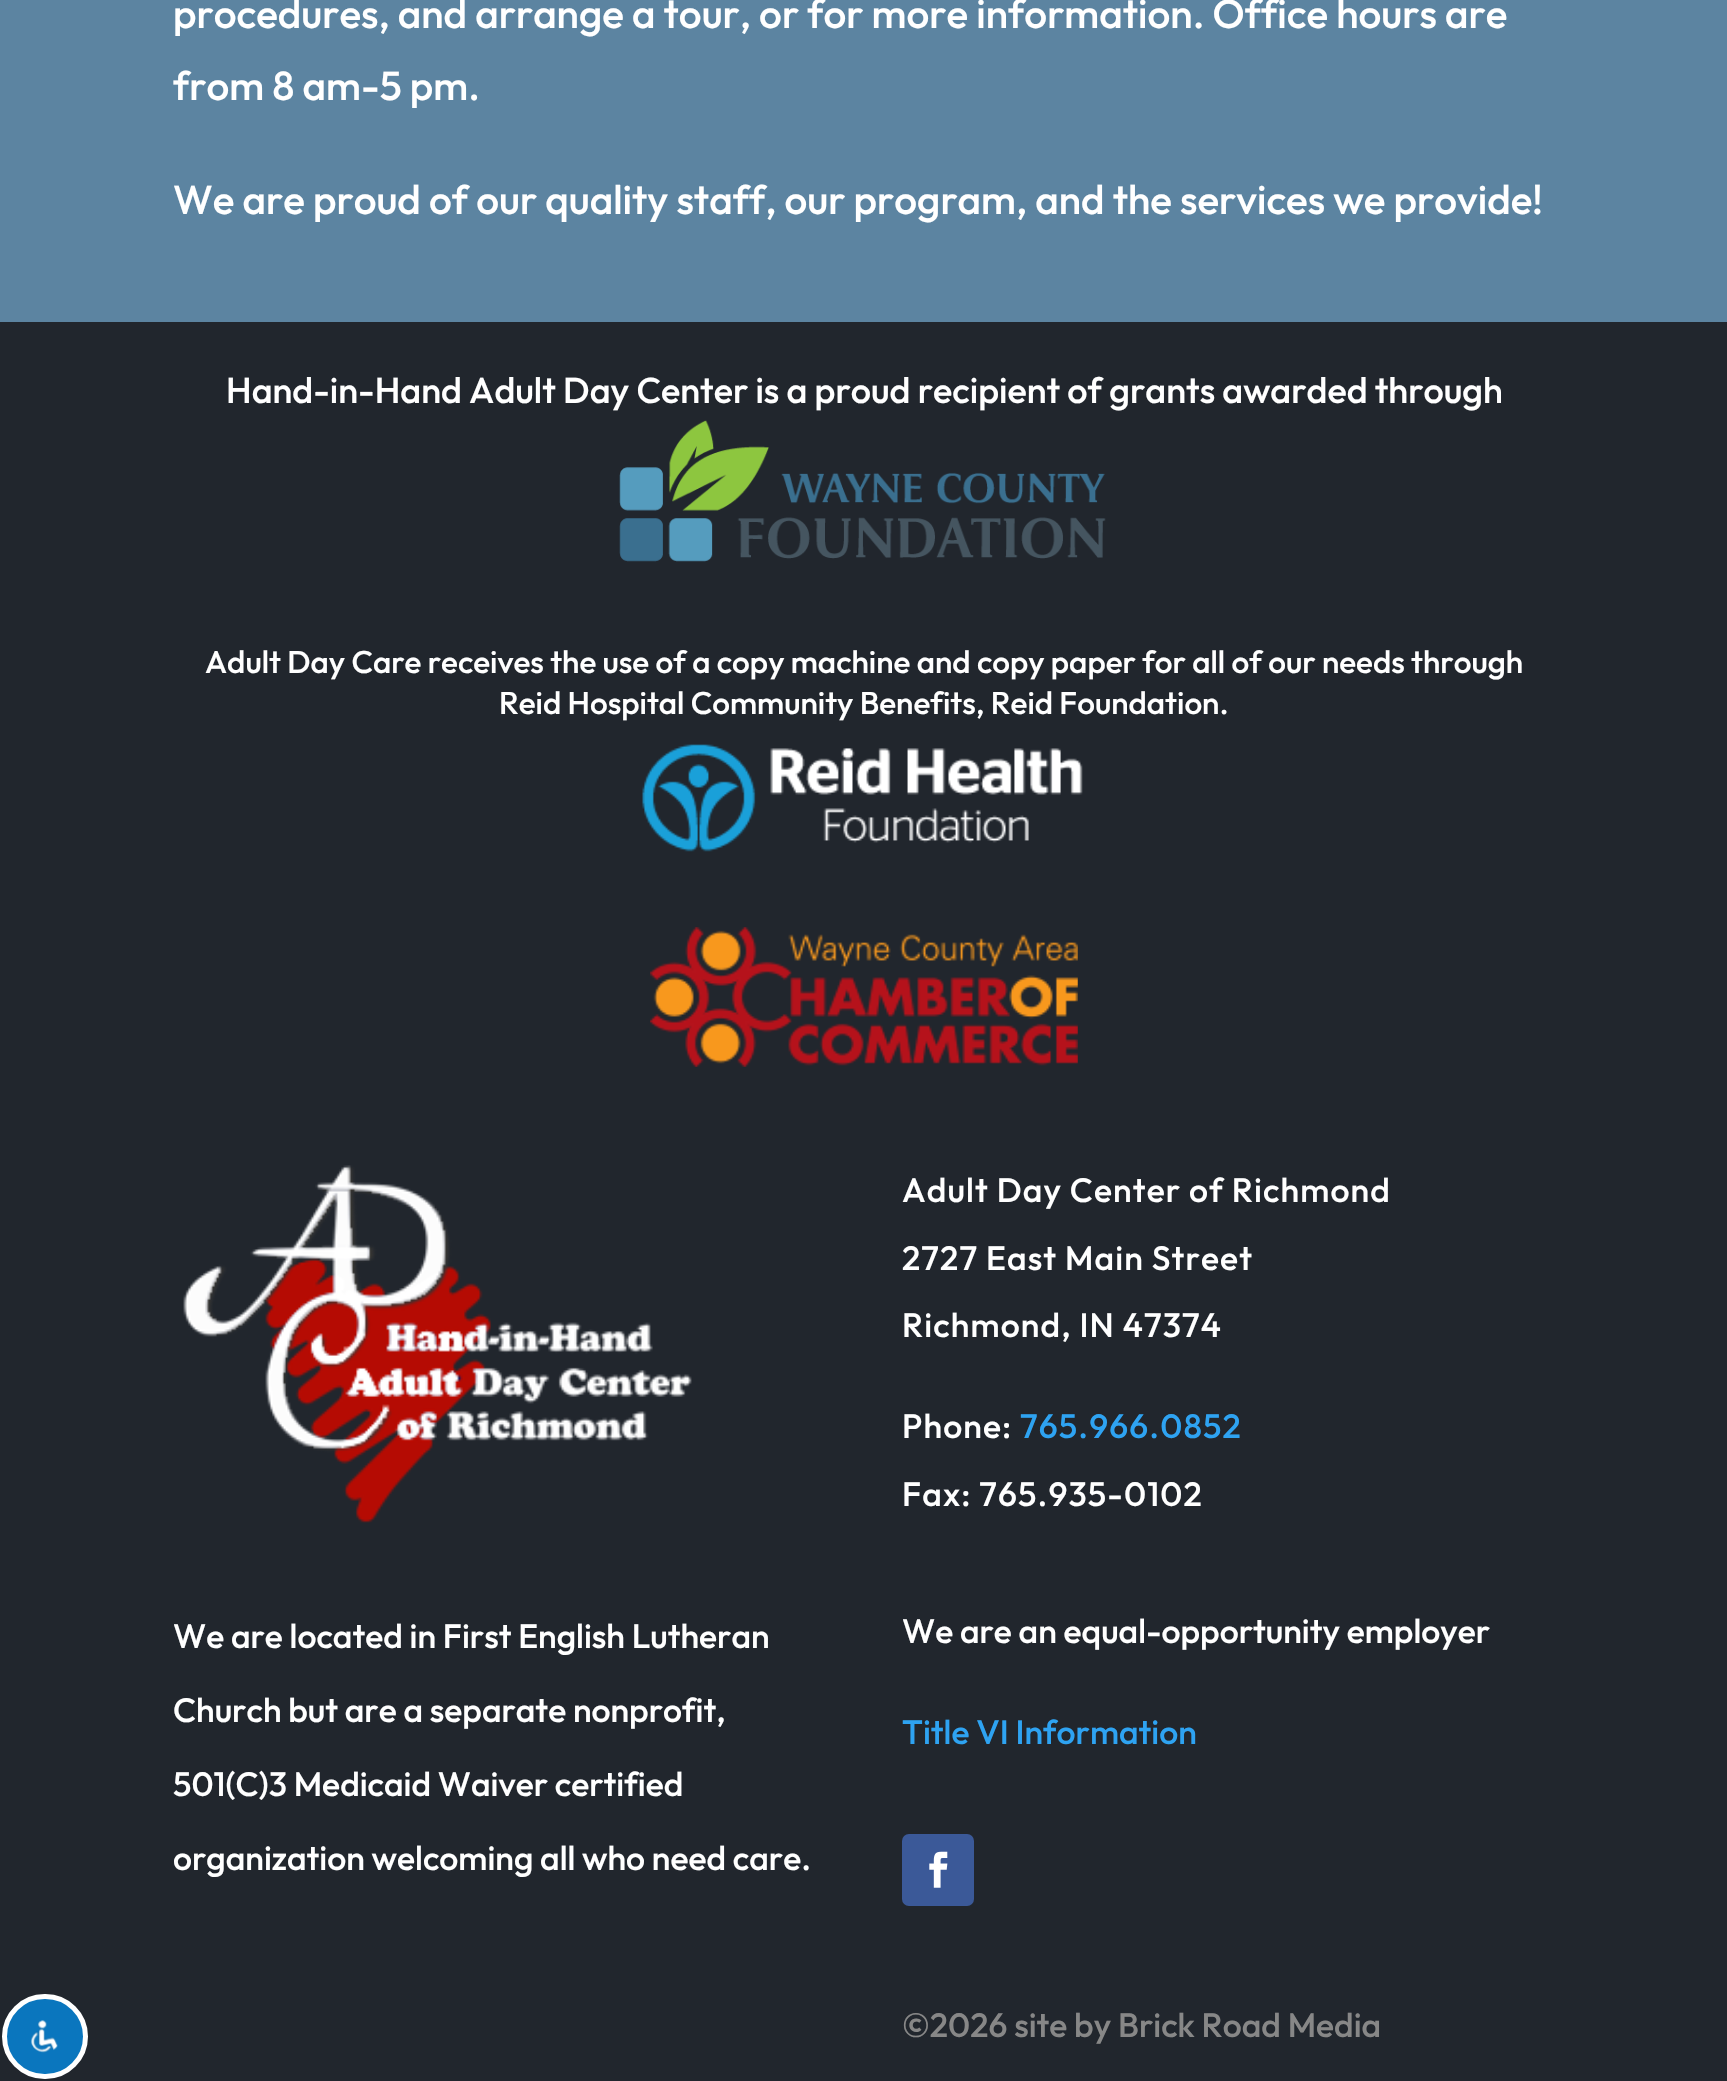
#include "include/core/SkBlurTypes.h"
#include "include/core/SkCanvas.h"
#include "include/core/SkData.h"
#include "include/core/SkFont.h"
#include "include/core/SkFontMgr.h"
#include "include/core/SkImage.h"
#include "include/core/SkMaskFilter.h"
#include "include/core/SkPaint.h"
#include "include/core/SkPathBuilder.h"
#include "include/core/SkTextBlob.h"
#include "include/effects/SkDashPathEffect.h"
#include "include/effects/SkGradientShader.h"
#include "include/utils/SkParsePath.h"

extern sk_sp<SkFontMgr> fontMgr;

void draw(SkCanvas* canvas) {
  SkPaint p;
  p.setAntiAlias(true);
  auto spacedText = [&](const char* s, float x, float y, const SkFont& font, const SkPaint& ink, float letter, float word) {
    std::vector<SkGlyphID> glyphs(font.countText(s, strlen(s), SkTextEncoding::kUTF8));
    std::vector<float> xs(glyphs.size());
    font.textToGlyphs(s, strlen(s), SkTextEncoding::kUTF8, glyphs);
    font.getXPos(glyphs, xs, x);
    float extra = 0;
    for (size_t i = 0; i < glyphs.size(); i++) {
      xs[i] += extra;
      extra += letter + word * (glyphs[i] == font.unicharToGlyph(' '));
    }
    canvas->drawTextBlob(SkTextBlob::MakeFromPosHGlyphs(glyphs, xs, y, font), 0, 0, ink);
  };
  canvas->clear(SkColorSetRGB(92, 132, 161));
  p.setColor(SkColorSetRGB(33, 38, 45));
  canvas->drawRect(SkRect::MakeLTRB(0, 322, 1727, 2081), p);
  p.setColor(SkColorSetRGB(10, 118, 190));
  canvas->drawRoundRect(SkRect::MakeLTRB(4.5f, 1996.5f, 85.5f, 2076.5f), 40, 40, p);
  p.setStyle(SkPaint::kStroke_Style);
  p.setStrokeWidth(5);
  p.setColor(SK_ColorWHITE);
  canvas->drawRoundRect(SkRect::MakeLTRB(4.5f, 1996.5f, 85.5f, 2076.5f), 40, 40, p);
  canvas->drawImageRect(SkImages::DeferredFromEncodedData(SkData::MakeFromFileName("images/1.png")), SkRect::MakeLTRB(31, 2020, 58, 2053), SkSamplingOptions());
  canvas->drawImageRect(SkImages::DeferredFromEncodedData(SkData::MakeFromFileName("images/2.png")), SkRect::MakeLTRB(619, 420, 1106, 562), SkSamplingOptions());
  canvas->drawImageRect(SkImages::DeferredFromEncodedData(SkData::MakeFromFileName("images/3.png")), SkRect::MakeLTRB(642, 744, 1083, 852), SkSamplingOptions());
  canvas->drawImageRect(SkImages::DeferredFromEncodedData(SkData::MakeFromFileName("images/4.png")), SkRect::MakeLTRB(650, 927, 1078, 1067), SkSamplingOptions());
  canvas->drawImageRect(SkImages::DeferredFromEncodedData(SkData::MakeFromFileName("images/5.png")), SkRect::MakeLTRB(183, 1165, 692, 1523), SkSamplingOptions());
  p.setStyle(SkPaint::kFill_Style);
  p.setColor(SkColorSetRGB(59, 89, 152));
  canvas->drawRoundRect(SkRect::MakeLTRB(902, 1834, 974, 1906), 7, 7, p);
  canvas->drawImageRect(SkImages::DeferredFromEncodedData(SkData::MakeFromFileName("images/6.png")), SkRect::MakeLTRB(929, 1851, 948, 1888), SkSamplingOptions());
  SkFont font1(fontMgr->matchFamilyStyle("Outfit", SkFontStyle(500, SkFontStyle::kNormal_Width, SkFontStyle::kUpright_Slant)), 40.5f);
  font1.setSubpixel(true);
  p.setColor(SK_ColorWHITE);
  canvas->drawString("procedures, and arrange a tour, or for more information. Office hours are", 173, 28, font1, p);
  canvas->drawString("from 8 am-5 pm.", 173, 100, font1, p);
  canvas->drawString("We are proud of our quality staff, our program, and the services we provide!", 173, 214, font1, p);
  SkFont font2(fontMgr->matchFamilyStyle("Outfit", SkFontStyle(500, SkFontStyle::kNormal_Width, SkFontStyle::kUpright_Slant)), 36);
  font2.setSubpixel(true);
  canvas->drawString("Hand-in-Hand Adult Day Center is a proud recipient of grants awarded through", 226, 403, font2, p);
  SkFont font3(fontMgr->matchFamilyStyle("Outfit", SkFontStyle(500, SkFontStyle::kNormal_Width, SkFontStyle::kUpright_Slant)), 31.5f);
  font3.setSubpixel(true);
  canvas->drawString("Adult Day Care receives the use of a copy machine and copy paper for all of our needs through", 205, 673, font3, p);
  canvas->drawString("Reid Hospital Community Benefits, Reid Foundation.", 499, 714, font3, p);
  SkFont font4(fontMgr->matchFamilyStyle("Outfit", SkFontStyle(500, SkFontStyle::kNormal_Width, SkFontStyle::kUpright_Slant)), 33.75f);
  font4.setSubpixel(true);
  spacedText("Adult Day Center of Richmond", 902, 1202, font4, p, 1.1f, 0);
  spacedText("2727 East Main Street", 902, 1270, font4, p, 1.1f, 0);
  spacedText("Richmond, IN 47374", 902, 1337, font4, p, 1.1f, 0);
  spacedText("Phone:", 902, 1438, font4, p, 1.1f, 0);
  p.setColor(SkColorSetRGB(46, 163, 242));
  spacedText("765.966.0852", 1020, 1438, font4, p, 1.1f, 0);
  p.setColor(SK_ColorWHITE);
  spacedText("Fax: 765.935-0102", 902, 1506, font4, p, 1.1f, 0);
  canvas->drawString("We are located in First English Lutheran", 173, 1648, font4, p);
  canvas->drawString("Church but are a separate nonprofit,", 173, 1722, font4, p);
  canvas->drawString("501(C)3 Medicaid Waiver certified", 173, 1796, font4, p);
  canvas->drawString("organization welcoming all who need care.", 173, 1870, font4, p);
  canvas->drawString("We are an equal-opportunity employer", 902, 1643, font4, p);
  p.setColor(SkColorSetRGB(46, 163, 242));
  canvas->drawString("Title VI Information", 902, 1744, font4, p);
  p.setColor(SkColorSetRGB(135, 135, 135));
  canvas->drawString("©2026 site by Brick Road Media", 902, 2037, font4, p);
}
